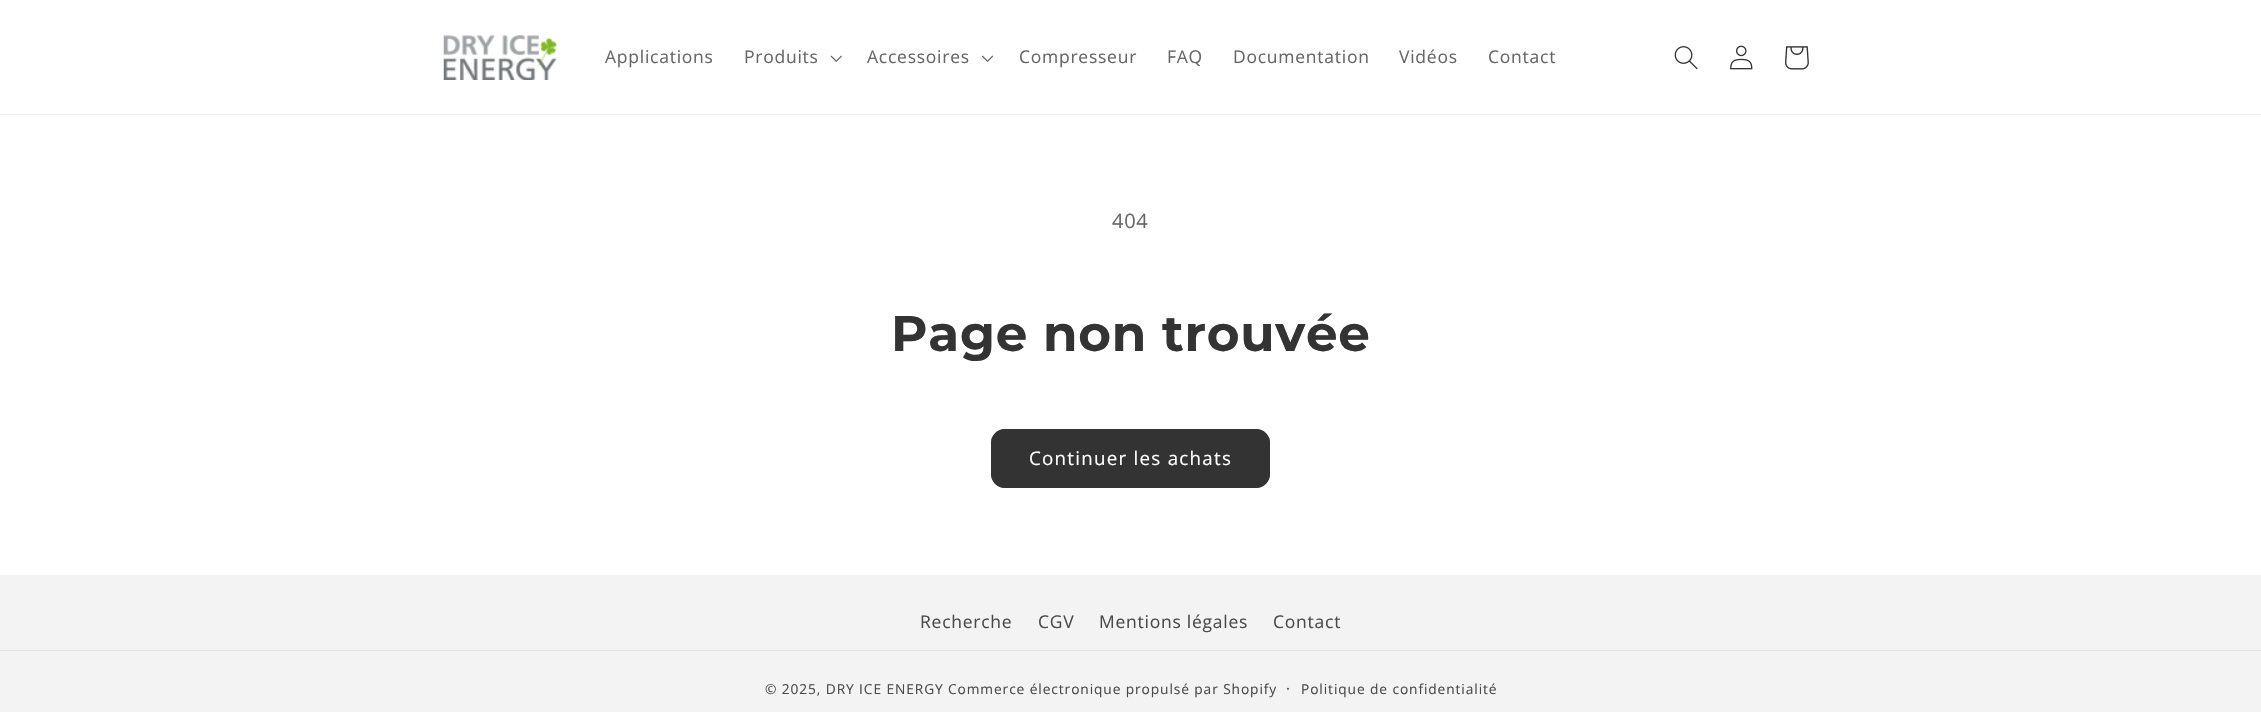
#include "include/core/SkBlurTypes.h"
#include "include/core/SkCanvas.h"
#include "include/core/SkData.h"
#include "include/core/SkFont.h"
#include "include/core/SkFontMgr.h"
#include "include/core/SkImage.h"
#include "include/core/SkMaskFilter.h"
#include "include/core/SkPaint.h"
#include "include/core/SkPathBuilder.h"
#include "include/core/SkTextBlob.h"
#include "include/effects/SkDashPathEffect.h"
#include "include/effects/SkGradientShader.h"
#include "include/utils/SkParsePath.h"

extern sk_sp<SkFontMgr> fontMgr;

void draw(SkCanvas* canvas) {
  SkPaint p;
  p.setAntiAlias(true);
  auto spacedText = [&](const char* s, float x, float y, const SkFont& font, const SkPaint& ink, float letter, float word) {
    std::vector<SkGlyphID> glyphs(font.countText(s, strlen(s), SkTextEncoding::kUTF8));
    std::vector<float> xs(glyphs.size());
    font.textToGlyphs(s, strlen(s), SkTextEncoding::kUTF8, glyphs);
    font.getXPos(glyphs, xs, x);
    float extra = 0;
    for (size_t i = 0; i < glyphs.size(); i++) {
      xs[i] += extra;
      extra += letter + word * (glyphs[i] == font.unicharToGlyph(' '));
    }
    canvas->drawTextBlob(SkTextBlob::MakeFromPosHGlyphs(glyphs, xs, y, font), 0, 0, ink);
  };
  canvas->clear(SK_ColorWHITE);
  p.setColor(SkColorSetRGB(239, 239, 239));
  canvas->drawRect(SkRect::MakeLTRB(0, 114, 2261, 115), p);
  canvas->drawImageRect(SkImages::DeferredFromEncodedData(SkData::MakeFromFileName("images/1.png")), SkRect::MakeLTRB(443, 35, 557, 80), SkSamplingOptions());
  canvas->drawImageRect(SkImages::DeferredFromEncodedData(SkData::MakeFromFileName("images/2.png")), SkRect::MakeLTRB(830, 55, 842, 62), SkSamplingOptions());
  canvas->drawImageRect(SkImages::DeferredFromEncodedData(SkData::MakeFromFileName("images/3.png")), SkRect::MakeLTRB(981, 55, 994, 62), SkSamplingOptions());
  canvas->drawImageRect(SkImages::DeferredFromEncodedData(SkData::MakeFromFileName("images/4.png")), SkRect::MakeLTRB(1674, 46, 1698, 70), SkSamplingOptions());
  canvas->drawImageRect(SkImages::DeferredFromEncodedData(SkData::MakeFromFileName("images/5.png")), SkRect::MakeLTRB(1730, 45, 1753, 70), SkSamplingOptions());
  canvas->drawImageRect(SkImages::DeferredFromEncodedData(SkData::MakeFromFileName("images/6.png")), SkRect::MakeLTRB(1785, 46, 1809, 70), SkSamplingOptions());
  p.setColor(SkColorSetRGB(51, 51, 51));
  canvas->drawRoundRect(SkRect::MakeLTRB(991, 429, 1270, 488), 14, 14, p);
  p.setStyle(SkPaint::kStroke_Style);
  p.setStrokeWidth(1);
  canvas->drawRoundRect(SkRect::MakeLTRB(991.5f, 429.5f, 1269.5f, 487.5f), 13.5f, 13.5f, p);
  p.setStyle(SkPaint::kFill_Style);
  p.setColor(SkColorSetRGB(243, 243, 243));
  canvas->drawRect(SkRect::MakeLTRB(0, 575, 2261, 712), p);
  p.setColor(SkColorSetRGB(225, 225, 225));
  canvas->drawRect(SkRect::MakeLTRB(0, 650, 2261, 651), p);
  SkFont font1(fontMgr->matchFamilyStyle("Open Sans", SkFontStyle::Normal()), 17.5f);
  font1.setSubpixel(true);
  p.setColor(SkColorSetRGB(102, 102, 102));
  spacedText("Applications", 605, 63, font1, p, 0.75f, 0);
  spacedText("Produits", 744, 63, font1, p, 0.75f, 0);
  spacedText("Accessoires", 867, 63, font1, p, 0.75f, 0);
  spacedText("Compresseur", 1019, 63, font1, p, 0.75f, 0);
  spacedText("FAQ", 1167, 63, font1, p, 0.75f, 0);
  spacedText("Documentation", 1233, 63, font1, p, 0.75f, 0);
  spacedText("Vidéos", 1399, 63, font1, p, 0.75f, 0);
  spacedText("Contact", 1488, 63, font1, p, 0.75f, 0);
  SkFont font2(fontMgr->matchFamilyStyle("Open Sans", SkFontStyle::Normal()), 20);
  font2.setSubpixel(true);
  spacedText("404", 1112, 228, font2, p, 0.75f, 0);
  SkFont font3(fontMgr->matchFamilyStyle("Montserrat", SkFontStyle::Bold()), 50);
  font3.setSubpixel(true);
  p.setColor(SkColorSetRGB(51, 51, 51));
  spacedText("Page non trouvée", 891, 351, font3, p, 0.75f, 0);
  SkFont font4(fontMgr->matchFamilyStyle("Open Sans", SkFontStyle::Normal()), 18.75f);
  font4.setSubpixel(true);
  p.setColor(SK_ColorWHITE);
  spacedText("Continuer les achats", 1029, 465, font4, p, 1.25f, 0);
  p.setColor(SkColorSetRGB(74, 74, 74));
  spacedText("Recherche", 920, 628, font1, p, 0.75f, 0);
  spacedText("CGV", 1038, 628, font1, p, 0.75f, 0);
  spacedText("Mentions légales", 1099, 628, font1, p, 0.75f, 0);
  spacedText("Contact", 1273, 628, font1, p, 0.75f, 0);
  SkFont font5(fontMgr->matchFamilyStyle("Open Sans", SkFontStyle::Normal()), 13.75f);
  font5.setSubpixel(true);
  spacedText("© 2025, DRY ICE ENERGY", 765, 694, font5, p, 0.9f, 0);
  spacedText("Commerce électronique propulsé par Shopify", 948, 694, font5, p, 0.9f, 0);
  SkFont font6(fontMgr->matchFamilyStyle("Open Sans", SkFontStyle::Normal()), 15);
  font6.setSubpixel(true);
  spacedText("·", 1286, 694, font6, p, 0.9f, 0);
  spacedText("Politique de confidentialité", 1301, 694, font5, p, 0.9f, 0);
}
